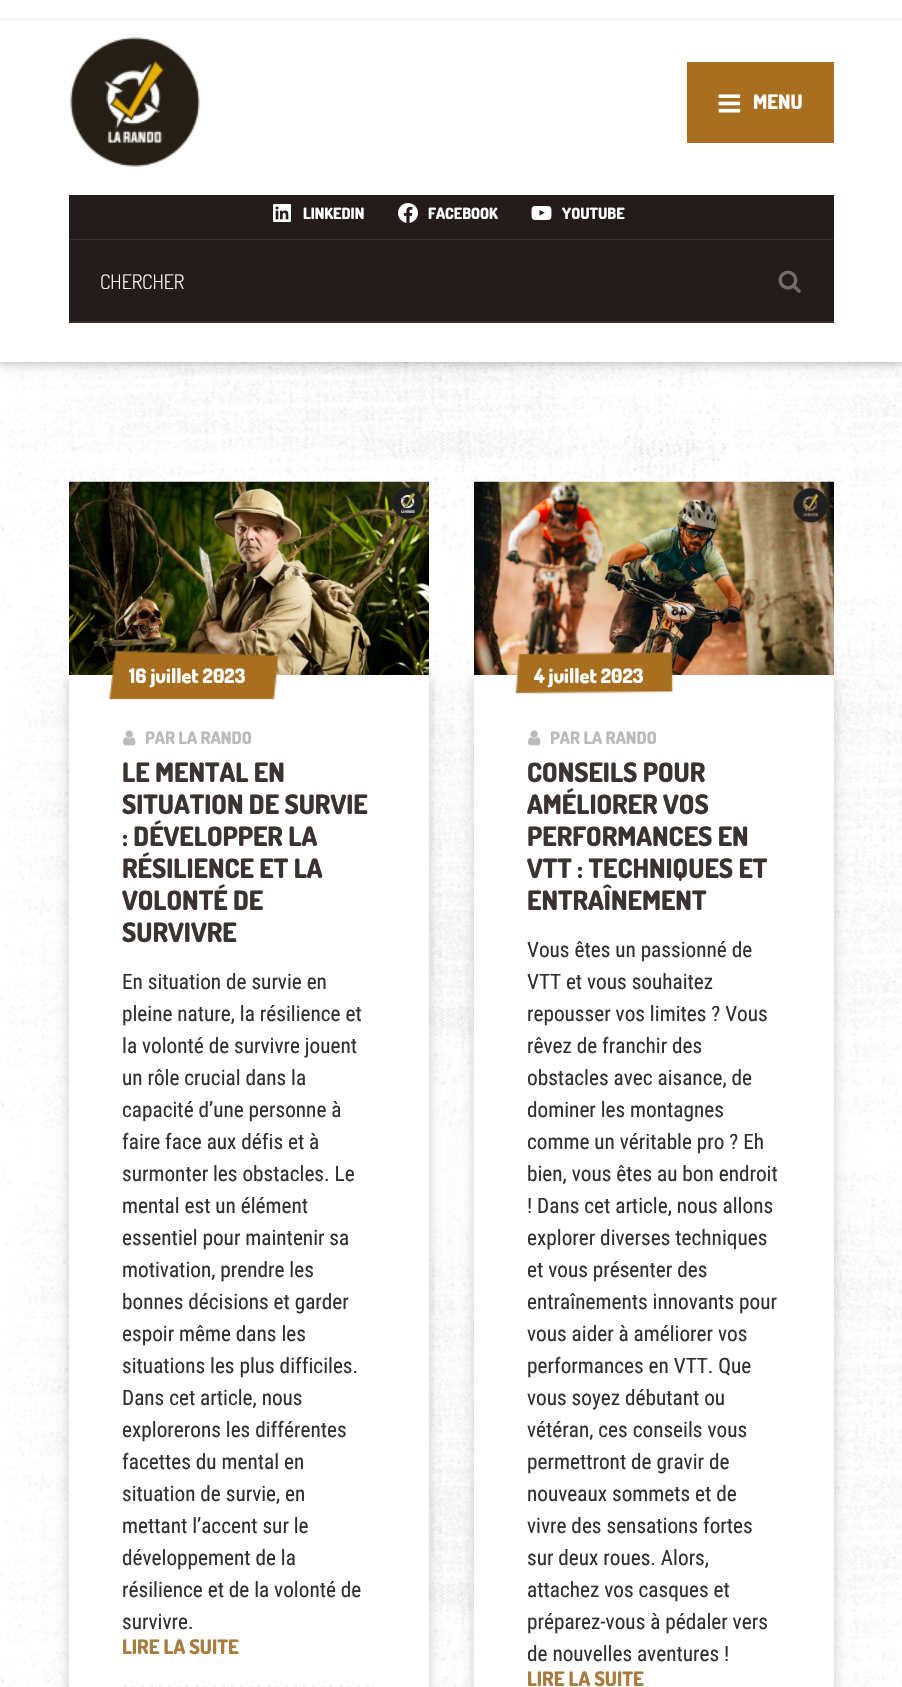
#include "include/core/SkBlurTypes.h"
#include "include/core/SkCanvas.h"
#include "include/core/SkData.h"
#include "include/core/SkFont.h"
#include "include/core/SkFontMgr.h"
#include "include/core/SkImage.h"
#include "include/core/SkMaskFilter.h"
#include "include/core/SkPaint.h"
#include "include/core/SkPathBuilder.h"
#include "include/core/SkTextBlob.h"
#include "include/effects/SkDashPathEffect.h"
#include "include/effects/SkGradientShader.h"
#include "include/utils/SkParsePath.h"

extern sk_sp<SkFontMgr> fontMgr;

void draw(SkCanvas* canvas) {
  SkPaint p;
  p.setAntiAlias(true);
  canvas->clear(SK_ColorWHITE);
  canvas->drawImageRect(SkImages::DeferredFromEncodedData(SkData::MakeFromFileName("images/1.png")), SkRect::MakeLTRB(0, 362, 902, 1687), SkSamplingOptions());
  p.setColor(SkColorSetARGB(38, 0, 0, 0));
  p.setMaskFilter(SkMaskFilter::MakeBlur(kNormal_SkBlurStyle, 5));
  canvas->drawRect(SkRect::MakeLTRB(0, 5, 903, 366), p);
  p.setMaskFilter(nullptr);
  p.setColor(SkColorSetARGB(89, 0, 0, 0));
  p.setMaskFilter(SkMaskFilter::MakeBlur(kNormal_SkBlurStyle, 3));
  canvas->drawRect(SkRect::MakeLTRB(0, -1, 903, 360), p);
  p.setMaskFilter(nullptr);
  p.setColor(SK_ColorWHITE);
  canvas->drawRect(SkRect::MakeLTRB(0, 0, 902, 362), p);
  p.setColor(SkColorSetRGB(247, 247, 247));
  canvas->drawRect(SkRect::MakeLTRB(0, 18, 902, 21), p);
  canvas->drawImageRect(SkImages::DeferredFromEncodedData(SkData::MakeFromFileName("images/2.png")), SkRect::MakeLTRB(70, 37, 200, 167), SkSamplingOptions());
  p.setColor(SkColorSetRGB(168, 111, 32));
  canvas->drawRect(SkRect::MakeLTRB(687, 62, 834, 143), p);
  canvas->drawImageRect(SkImages::DeferredFromEncodedData(SkData::MakeFromFileName("images/3.png")), SkRect::MakeLTRB(718, 94, 741, 113), SkSamplingOptions());
  p.setColor(SkColorSetRGB(35, 28, 26));
  canvas->drawRect(SkRect::MakeLTRB(69, 195, 834, 239), p);
  p.setColor(SkColorSetRGB(58, 47, 43));
  canvas->drawRect(SkRect::MakeLTRB(69, 239, 834, 240), p);
  canvas->drawImageRect(SkImages::DeferredFromEncodedData(SkData::MakeFromFileName("images/4.png")), SkRect::MakeLTRB(273, 204, 291, 222), SkSamplingOptions());
  canvas->drawImageRect(SkImages::DeferredFromEncodedData(SkData::MakeFromFileName("images/5.png")), SkRect::MakeLTRB(398, 203, 418, 223), SkSamplingOptions());
  canvas->drawImageRect(SkImages::DeferredFromEncodedData(SkData::MakeFromFileName("images/6.png")), SkRect::MakeLTRB(531, 206, 552, 220), SkSamplingOptions());
  p.setColor(SkColorSetRGB(35, 28, 26));
  canvas->drawRect(SkRect::MakeLTRB(69, 240, 834, 321), p);
  p.setColor(SkColorSetRGB(58, 47, 43));
  canvas->drawRect(SkRect::MakeLTRB(69, 321, 834, 323), p);
  canvas->drawImageRect(SkImages::DeferredFromEncodedData(SkData::MakeFromFileName("images/7.png")), SkRect::MakeLTRB(778, 270, 801, 293), SkSamplingOptions());
  canvas->drawImageRect(SkImages::DeferredFromEncodedData(SkData::MakeFromFileName("images/8.png")), SkRect::MakeLTRB(69, 481, 429, 675), SkSamplingOptions());
  p.setColor(SkColorSetARGB(38, 0, 0, 0));
  p.setMaskFilter(SkMaskFilter::MakeBlur(kNormal_SkBlurStyle, 4.5f));
  canvas->drawRect(SkRect::MakeLTRB(69, 678, 429, 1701), p);
  p.setMaskFilter(nullptr);
  p.setColor(SkColorSetARGB(13, 0, 0, 0));
  p.setMaskFilter(SkMaskFilter::MakeBlur(kNormal_SkBlurStyle, 9));
  canvas->drawRect(SkRect::MakeLTRB(69, 681, 429, 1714), p);
  p.setMaskFilter(nullptr);
  p.setColor(SK_ColorWHITE);
  canvas->drawRect(SkRect::MakeLTRB(69, 675, 429, 1687), p);
  canvas->drawImageRect(SkImages::DeferredFromEncodedData(SkData::MakeFromFileName("images/9.png")), SkRect::MakeLTRB(109, 650, 280, 700), SkSamplingOptions());
  canvas->drawImageRect(SkImages::DeferredFromEncodedData(SkData::MakeFromFileName("images/10.png")), SkRect::MakeLTRB(123, 730, 136, 746), SkSamplingOptions());
  canvas->drawImageRect(SkImages::DeferredFromEncodedData(SkData::MakeFromFileName("images/11.png")), SkRect::MakeLTRB(123, 1686, 369, 1687), SkSamplingOptions());
  canvas->drawImageRect(SkImages::DeferredFromEncodedData(SkData::MakeFromFileName("images/12.png")), SkRect::MakeLTRB(474, 481, 834, 675), SkSamplingOptions());
  p.setColor(SkColorSetARGB(38, 0, 0, 0));
  p.setMaskFilter(SkMaskFilter::MakeBlur(kNormal_SkBlurStyle, 4.5f));
  canvas->drawRect(SkRect::MakeLTRB(474, 678, 834, 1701), p);
  p.setMaskFilter(nullptr);
  p.setColor(SkColorSetARGB(13, 0, 0, 0));
  p.setMaskFilter(SkMaskFilter::MakeBlur(kNormal_SkBlurStyle, 9));
  canvas->drawRect(SkRect::MakeLTRB(474, 681, 834, 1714), p);
  p.setMaskFilter(nullptr);
  p.setColor(SK_ColorWHITE);
  canvas->drawRect(SkRect::MakeLTRB(474, 675, 834, 1687), p);
  canvas->drawImageRect(SkImages::DeferredFromEncodedData(SkData::MakeFromFileName("images/13.png")), SkRect::MakeLTRB(515, 652, 674, 694), SkSamplingOptions());
  canvas->drawImageRect(SkImages::DeferredFromEncodedData(SkData::MakeFromFileName("images/10.png")), SkRect::MakeLTRB(528, 730, 541, 746), SkSamplingOptions());
  SkFont font1(fontMgr->matchFamilyStyle("Dosis", SkFontStyle(800, SkFontStyle::kNormal_Width, SkFontStyle::kUpright_Slant)), 20);
  font1.setSubpixel(true);
  canvas->drawString("MENU", 753, 109, font1, p);
  SkFont font2(fontMgr->matchFamilyStyle("Dosis", SkFontStyle(800, SkFontStyle::kNormal_Width, SkFontStyle::kUpright_Slant)), 15.5f);
  font2.setSubpixel(true);
  canvas->drawString("LINKEDIN", 303, 219, font2, p);
  canvas->drawString("FACEBOOK", 428, 219, font2, p);
  canvas->drawString("YOUTUBE", 562, 219, font2, p);
  SkFont font3(fontMgr->matchFamilyStyle("Dosis", SkFontStyle(300, SkFontStyle::kNormal_Width, SkFontStyle::kUpright_Slant)), 20);
  font3.setSubpixel(true);
  canvas->drawString("CHERCHER", 100, 289, font3, p);
  canvas->drawString("16 juillet 2023", 129, 683, font1, p);
  SkFont font4(fontMgr->matchFamilyStyle("Dosis", SkFontStyle(800, SkFontStyle::kNormal_Width, SkFontStyle::kUpright_Slant)), 17.25f);
  font4.setSubpixel(true);
  p.setColor(SkColorSetRGB(187, 187, 187));
  canvas->drawString("PAR LA RANDO", 145, 744, font4, p);
  SkFont font5(fontMgr->matchFamilyStyle("Dosis", SkFontStyle(800, SkFontStyle::kNormal_Width, SkFontStyle::kUpright_Slant)), 26.75f);
  font5.setSubpixel(true);
  p.setColor(SkColorSetRGB(59, 51, 49));
  canvas->drawString("LE MENTAL EN", 122, 782, font5, p);
  canvas->drawString("SITUATION DE SURVIE", 122, 814, font5, p);
  canvas->drawString(": DÉVELOPPER LA", 122, 846, font5, p);
  canvas->drawString("RÉSILIENCE ET LA", 122, 878, font5, p);
  canvas->drawString("VOLONTÉ DE", 122, 910, font5, p);
  canvas->drawString("SURVIVRE", 122, 942, font5, p);
  SkFont font6(fontMgr->matchFamilyStyle("Roboto Condensed", SkFontStyle::Normal()), 21.25f);
  font6.setSubpixel(true);
  p.setColor(SkColorSetRGB(48, 48, 48));
  canvas->drawString("En situation de survie en", 122, 989, font6, p);
  canvas->drawString("pleine nature, la résilience et", 122, 1021, font6, p);
  canvas->drawString("la volonté de survivre jouent", 122, 1053, font6, p);
  canvas->drawString("un rôle crucial dans la", 122, 1085, font6, p);
  canvas->drawString("capacité d’une personne à", 122, 1117, font6, p);
  canvas->drawString("faire face aux défis et à", 122, 1149, font6, p);
  canvas->drawString("surmonter les obstacles. Le", 122, 1181, font6, p);
  canvas->drawString("mental est un élément", 122, 1213, font6, p);
  canvas->drawString("essentiel pour maintenir sa", 122, 1245, font6, p);
  canvas->drawString("motivation, prendre les", 122, 1277, font6, p);
  canvas->drawString("bonnes décisions et garder", 122, 1309, font6, p);
  canvas->drawString("espoir même dans les", 122, 1341, font6, p);
  canvas->drawString("situations les plus difficiles.", 122, 1373, font6, p);
  canvas->drawString("Dans cet article, nous", 122, 1405, font6, p);
  canvas->drawString("explorerons les différentes", 122, 1437, font6, p);
  canvas->drawString("facettes du mental en", 122, 1469, font6, p);
  canvas->drawString("situation de survie, en", 122, 1501, font6, p);
  canvas->drawString("mettant l’accent sur le", 122, 1533, font6, p);
  canvas->drawString("développement de la", 122, 1565, font6, p);
  canvas->drawString("résilience et de la volonté de", 122, 1597, font6, p);
  canvas->drawString("survivre.", 122, 1629, font6, p);
  p.setColor(SkColorSetRGB(168, 124, 62));
  canvas->drawString("LIRE LA SUITE", 122, 1654, font1, p);
  p.setColor(SK_ColorWHITE);
  canvas->drawString("4 juillet 2023", 534, 683, font1, p);
  p.setColor(SkColorSetRGB(187, 187, 187));
  canvas->drawString("PAR LA RANDO", 550, 744, font4, p);
  p.setColor(SkColorSetRGB(59, 51, 49));
  canvas->drawString("CONSEILS POUR", 527, 782, font5, p);
  canvas->drawString("AMÉLIORER VOS", 527, 814, font5, p);
  canvas->drawString("PERFORMANCES EN", 527, 846, font5, p);
  canvas->drawString("VTT : TECHNIQUES ET", 527, 878, font5, p);
  canvas->drawString("ENTRAÎNEMENT", 527, 910, font5, p);
  p.setColor(SkColorSetRGB(48, 48, 48));
  canvas->drawString("Vous êtes un passionné de", 527, 957, font6, p);
  canvas->drawString("VTT et vous souhaitez", 527, 989, font6, p);
  canvas->drawString("repousser vos limites ? Vous", 527, 1021, font6, p);
  canvas->drawString("rêvez de franchir des", 527, 1053, font6, p);
  canvas->drawString("obstacles avec aisance, de", 527, 1085, font6, p);
  canvas->drawString("dominer les montagnes", 527, 1117, font6, p);
  canvas->drawString("comme un véritable pro ? Eh", 527, 1149, font6, p);
  canvas->drawString("bien, vous êtes au bon endroit", 527, 1181, font6, p);
  canvas->drawString("! Dans cet article, nous allons", 527, 1213, font6, p);
  canvas->drawString("explorer diverses techniques", 527, 1245, font6, p);
  canvas->drawString("et vous présenter des", 527, 1277, font6, p);
  canvas->drawString("entraînements innovants pour", 527, 1309, font6, p);
  canvas->drawString("vous aider à améliorer vos", 527, 1341, font6, p);
  canvas->drawString("performances en VTT. Que", 527, 1373, font6, p);
  canvas->drawString("vous soyez débutant ou", 527, 1405, font6, p);
  canvas->drawString("vétéran, ces conseils vous", 527, 1437, font6, p);
  canvas->drawString("permettront de gravir de", 527, 1469, font6, p);
  canvas->drawString("nouveaux sommets et de", 527, 1501, font6, p);
  canvas->drawString("vivre des sensations fortes", 527, 1533, font6, p);
  canvas->drawString("sur deux roues. Alors,", 527, 1565, font6, p);
  canvas->drawString("attachez vos casques et", 527, 1597, font6, p);
  canvas->drawString("préparez-vous à pédaler vers", 527, 1629, font6, p);
  canvas->drawString("de nouvelles aventures !", 527, 1661, font6, p);
  p.setColor(SkColorSetRGB(168, 124, 62));
  canvas->drawString("LIRE LA SUITE", 527, 1686, font1, p);
}
